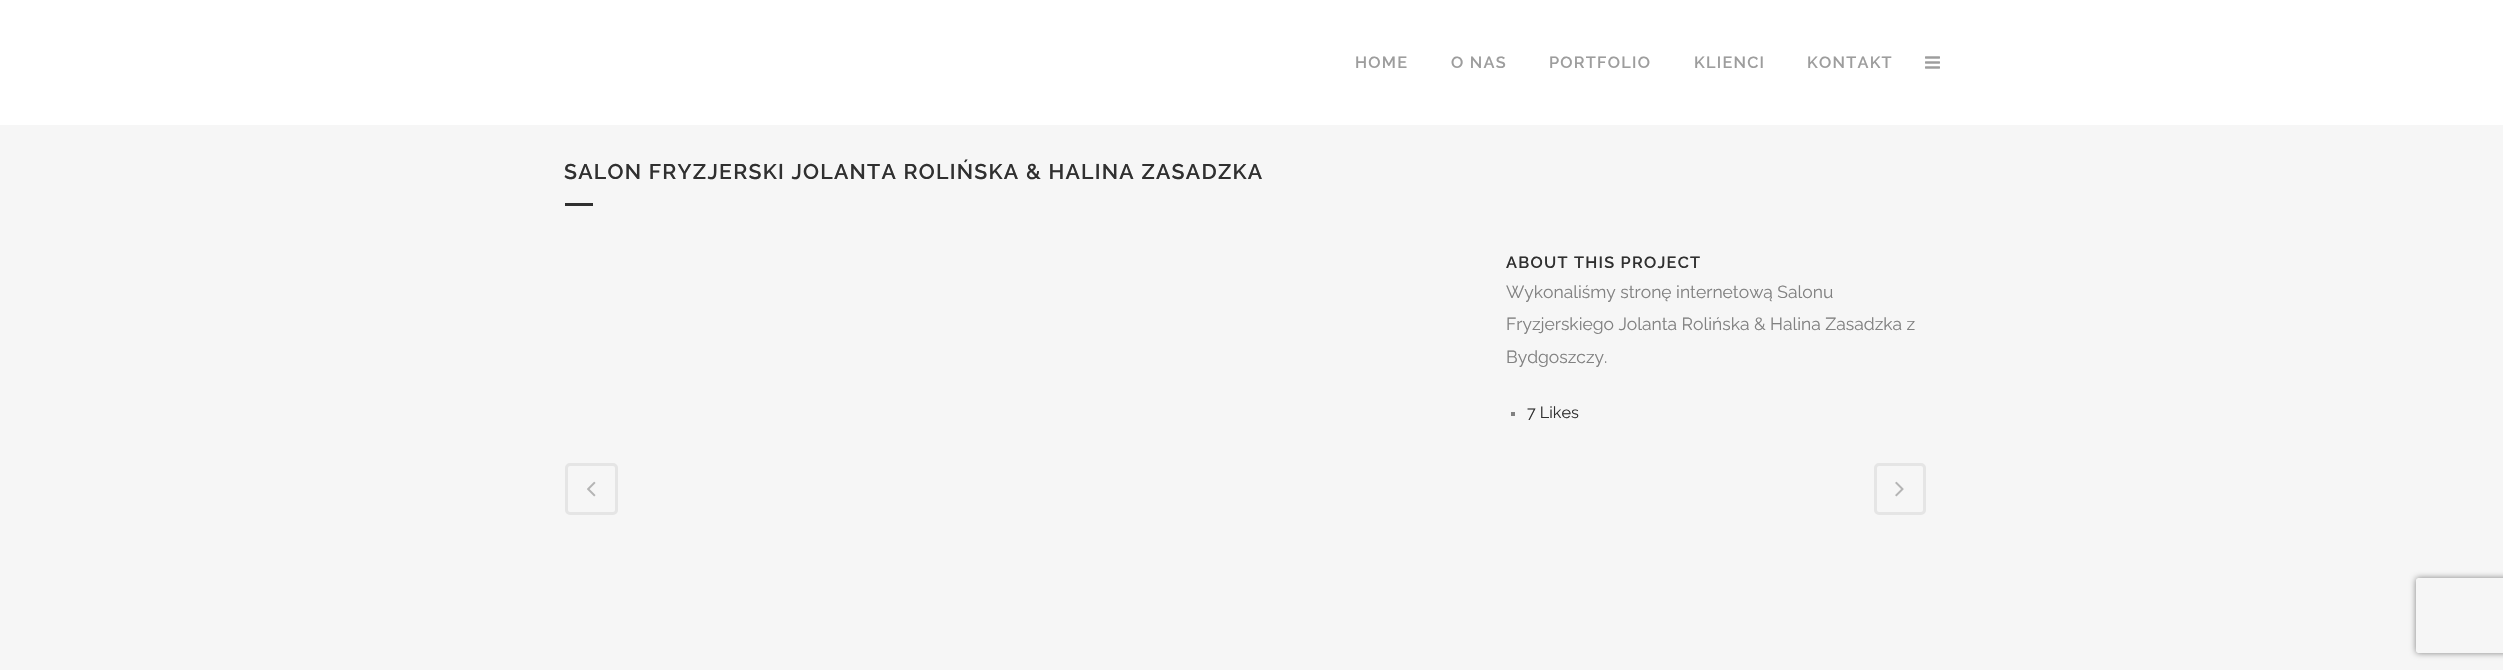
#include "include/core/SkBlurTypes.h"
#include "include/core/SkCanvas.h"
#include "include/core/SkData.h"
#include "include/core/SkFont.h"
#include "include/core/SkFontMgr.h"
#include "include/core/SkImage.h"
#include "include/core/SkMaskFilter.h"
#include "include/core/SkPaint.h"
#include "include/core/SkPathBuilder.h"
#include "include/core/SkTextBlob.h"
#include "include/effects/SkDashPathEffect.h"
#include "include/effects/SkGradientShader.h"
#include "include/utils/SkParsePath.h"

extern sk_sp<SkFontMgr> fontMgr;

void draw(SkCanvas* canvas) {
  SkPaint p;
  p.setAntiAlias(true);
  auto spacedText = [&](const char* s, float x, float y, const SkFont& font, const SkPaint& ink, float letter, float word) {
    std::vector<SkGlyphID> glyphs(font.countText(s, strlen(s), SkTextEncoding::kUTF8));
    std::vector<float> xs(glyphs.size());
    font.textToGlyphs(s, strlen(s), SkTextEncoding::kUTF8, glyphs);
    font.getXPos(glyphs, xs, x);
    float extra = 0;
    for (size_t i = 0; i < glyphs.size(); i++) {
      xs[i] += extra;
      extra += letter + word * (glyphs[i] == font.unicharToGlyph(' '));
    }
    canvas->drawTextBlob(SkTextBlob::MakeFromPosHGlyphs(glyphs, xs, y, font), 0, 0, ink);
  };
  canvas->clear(SkColorSetRGB(246, 246, 246));
  p.setColor(SK_ColorWHITE);
  canvas->drawRect(SkRect::MakeLTRB(0, 0, 2503, 125), p);
  canvas->drawImageRect(SkImages::DeferredFromEncodedData(SkData::MakeFromFileName("images/1.png")), SkRect::MakeLTRB(1925, 56, 1940, 69), SkSamplingOptions());
  p.setColor(SkColorSetRGB(48, 48, 48));
  canvas->drawRect(SkRect::MakeLTRB(565, 203, 593, 206), p);
  p.setColor(SkColorSetRGB(129, 129, 129));
  canvas->drawRect(SkRect::MakeLTRB(1511, 412, 1515, 416), p);
  p.setStyle(SkPaint::kStroke_Style);
  p.setStrokeWidth(3);
  p.setColor(SkColorSetRGB(229, 229, 229));
  canvas->drawRoundRect(SkRect::MakeLTRB(566.5f, 464.5f, 616.5f, 513.5f), 3.5f, 3.5f, p);
  canvas->drawImageRect(SkImages::DeferredFromEncodedData(SkData::MakeFromFileName("images/2.png")), SkRect::MakeLTRB(587, 481, 596, 497), SkSamplingOptions());
  canvas->drawRoundRect(SkRect::MakeLTRB(1875.5f, 464.5f, 1924.5f, 513.5f), 3.5f, 3.5f, p);
  canvas->drawImageRect(SkImages::DeferredFromEncodedData(SkData::MakeFromFileName("images/3.png")), SkRect::MakeLTRB(1895, 481, 1904, 497), SkSamplingOptions());
  canvas->save();
  canvas->clipPath(SkPathBuilder(SkPathFillType::kEvenOdd).moveTo(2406, 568).lineTo(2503, 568).lineTo(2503, 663).lineTo(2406, 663).close().moveTo(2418.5f, 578).lineTo(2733.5f, 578).cubicTo(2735, 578, 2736, 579, 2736, 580.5f).lineTo(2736, 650.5f).cubicTo(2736, 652, 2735, 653, 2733.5f, 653).lineTo(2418.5f, 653).cubicTo(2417, 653, 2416, 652, 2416, 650.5f).lineTo(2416, 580.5f).cubicTo(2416, 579, 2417, 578, 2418.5f, 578).close().detach(), true);
  p.setStyle(SkPaint::kFill_Style);
  p.setColor(SkColorSetRGB(128, 128, 128));
  p.setMaskFilter(SkMaskFilter::MakeBlur(kNormal_SkBlurStyle, 3));
  canvas->drawRoundRect(SkRect::MakeLTRB(2416, 578, 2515, 653), 2.5f, 2.5f, p);
  p.setMaskFilter(nullptr);
  canvas->restore();
  SkFont font1(fontMgr->matchFamilyStyle("Raleway", SkFontStyle(600, SkFontStyle::kNormal_Width, SkFontStyle::kUpright_Slant)), 16.25f);
  font1.setSubpixel(true);
  p.setColor(SkColorSetRGB(157, 157, 157));
  spacedText("HOME", 1355, 68, font1, p, 1.25f, 0);
  spacedText("O NAS", 1451, 68, font1, p, 1.25f, 0);
  spacedText("PORTFOLIO", 1549, 68, font1, p, 1.25f, 0);
  spacedText("KLIENCI", 1694, 68, font1, p, 1.25f, 0);
  spacedText("KONTAKT", 1807, 68, font1, p, 1.25f, 0);
  SkFont font2(fontMgr->matchFamilyStyle("Raleway", SkFontStyle(600, SkFontStyle::kNormal_Width, SkFontStyle::kUpright_Slant)), 21.25f);
  font2.setSubpixel(true);
  p.setColor(SkColorSetRGB(48, 48, 48));
  spacedText("SALON FRYZJERSKI JOLANTA ROLIŃSKA & HALINA ZASADZKA", 564, 179, font2, p, 1.25f, 0);
  spacedText("ABOUT THIS PROJECT", 1506, 268, font1, p, 1.25f, 0);
  SkFont font3(fontMgr->matchFamilyStyle("Raleway", SkFontStyle::Normal()), 17.5f);
  font3.setSubpixel(true);
  p.setColor(SkColorSetRGB(129, 129, 129));
  canvas->drawString("Wykonaliśmy stronę internetową Salonu", 1506, 298, font3, p);
  canvas->drawString("Fryzjerskiego Jolanta Rolińska & Halina Zasadzka z", 1506, 330, font3, p);
  canvas->drawString("Bydgoszczy.", 1506, 363, font3, p);
  SkFont font4(fontMgr->matchFamilyStyle("Raleway", SkFontStyle::Normal()), 16.25f);
  font4.setSubpixel(true);
  p.setColor(SkColorSetRGB(48, 48, 48));
  canvas->drawString("7 Likes", 1527, 418, font4, p);
}
